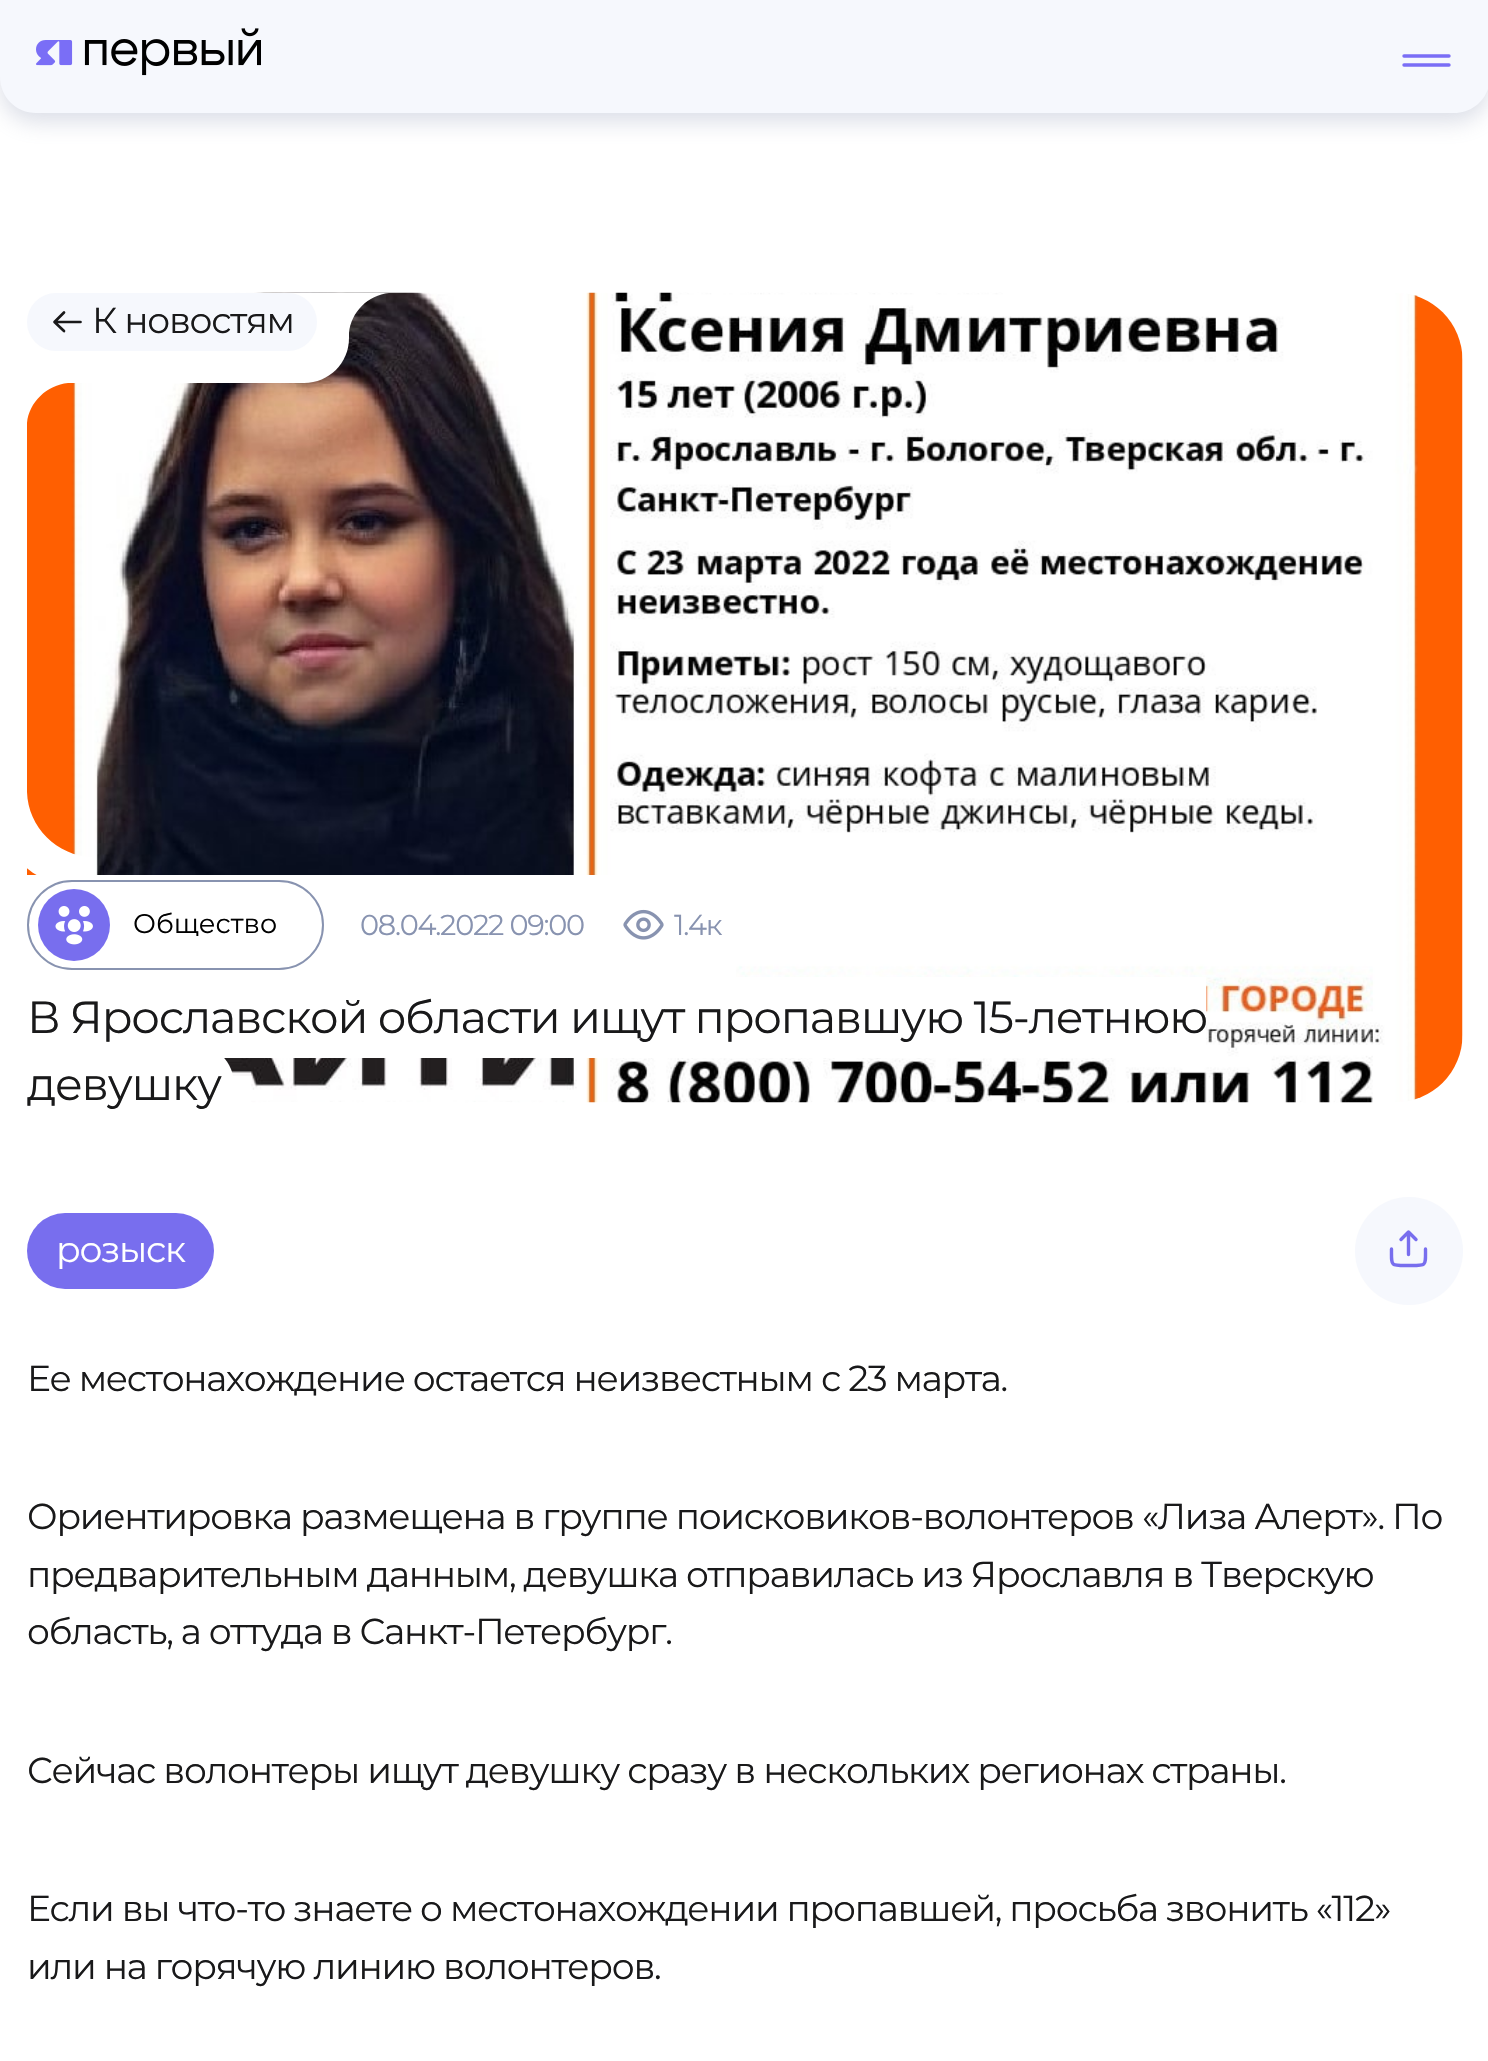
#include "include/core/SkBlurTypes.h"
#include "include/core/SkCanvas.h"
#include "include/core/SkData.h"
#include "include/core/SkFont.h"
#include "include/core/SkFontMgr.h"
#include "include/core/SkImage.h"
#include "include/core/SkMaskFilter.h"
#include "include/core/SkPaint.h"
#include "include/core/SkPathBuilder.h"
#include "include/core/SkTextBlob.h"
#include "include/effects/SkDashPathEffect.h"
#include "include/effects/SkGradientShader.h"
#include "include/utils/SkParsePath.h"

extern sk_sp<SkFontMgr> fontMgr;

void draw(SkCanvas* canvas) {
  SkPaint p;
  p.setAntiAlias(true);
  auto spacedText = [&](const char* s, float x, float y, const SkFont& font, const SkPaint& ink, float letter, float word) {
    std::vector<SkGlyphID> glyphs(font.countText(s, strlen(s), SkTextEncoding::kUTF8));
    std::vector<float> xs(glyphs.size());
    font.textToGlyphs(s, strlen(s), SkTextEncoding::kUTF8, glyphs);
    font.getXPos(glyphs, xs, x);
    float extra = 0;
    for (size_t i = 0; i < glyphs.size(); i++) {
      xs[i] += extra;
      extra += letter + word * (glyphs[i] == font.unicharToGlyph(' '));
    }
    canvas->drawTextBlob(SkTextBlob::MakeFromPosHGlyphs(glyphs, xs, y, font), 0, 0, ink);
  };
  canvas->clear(SK_ColorWHITE);
  p.setColor(SkColorSetARGB(77, 136, 147, 176));
  p.setMaskFilter(SkMaskFilter::MakeBlur(kNormal_SkBlurStyle, 11));
  canvas->drawRoundRect(SkRect::MakeLTRB(0, 9, 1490, 122), 36, 36, p);
  p.setMaskFilter(nullptr);
  p.setColor(SkColorSetRGB(246, 248, 253));
  canvas->drawPath(SkPathBuilder().moveTo(0, 0).lineTo(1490, 0).lineTo(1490, 77).cubicTo(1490, 97, 1474, 113, 1454, 113).lineTo(36, 113).cubicTo(16, 113, 0, 97, 0, 77).close().detach(), p);
  canvas->drawImageRect(SkImages::DeferredFromEncodedData(SkData::MakeFromFileName("images/1.png")), SkRect::MakeLTRB(36, 28, 261, 76), SkSamplingOptions());
  p.setStyle(SkPaint::kStroke_Style);
  p.setStrokeWidth(3.4f);
  p.setStrokeCap(SkPaint::kRound_Cap);
  p.setStrokeJoin(SkPaint::kRound_Join);
  p.setColor(SkColorSetRGB(122, 110, 246));
  canvas->drawPath(SkPathBuilder().moveTo(1404, 56).lineTo(1449, 56).moveTo(1404, 65).lineTo(1449, 65).detach(), p);
  canvas->drawImageRect(SkImages::DeferredFromEncodedData(SkData::MakeFromFileName("images/2.png")), SkRect::MakeLTRB(27, 292, 1463, 1103), SkSamplingOptions());
  p.setStyle(SkPaint::kFill_Style);
  p.setColor(SK_ColorWHITE);
  canvas->drawPath(SkPathBuilder().moveTo(27, 293).lineTo(349, 293).lineTo(349, 338).cubicTo(349, 363, 329, 383, 304, 383).lineTo(27, 383).close().detach(), p);
  p.setColor(SkColorSetRGB(246, 248, 253));
  canvas->drawRoundRect(SkRect::MakeLTRB(27, 293, 317, 351), 29, 29, p);
  p.setStyle(SkPaint::kStroke_Style);
  p.setStrokeWidth(2.7f);
  p.setColor(SkColorSetRGB(25, 25, 26));
  canvas->drawPath(SkPathBuilder().moveTo(64, 331).lineTo(54.5f, 322).lineTo(64, 312.5f).moveTo(80.5f, 322).lineTo(55, 322).detach(), p);
  canvas->save();
  canvas->clipRect(SkRect::MakeLTRB(27, 293, 1463, 1118));
  p.setStyle(SkPaint::kFill_Style);
  p.setColor(SK_ColorWHITE);
  canvas->drawPath(SkPathBuilder().moveTo(383, 275).cubicTo(354, 275, 331, 298, 331, 327).lineTo(331, 333).lineTo(349, 333).cubicTo(351, 312, 368, 295, 389, 293).lineTo(389, 275).close().detach(), p);
  canvas->drawPath(SkPathBuilder().moveTo(61, 365).cubicTo(32, 365, 9, 388, 9, 417).lineTo(9, 423).lineTo(27, 423).cubicTo(29, 402, 47, 385, 68, 383).lineTo(68, 365).close().detach(), p);
  canvas->drawPath(SkPathBuilder().moveTo(-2, 792).lineTo(-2, 806).cubicTo(-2, 851, 34, 887, 79, 887).lineTo(92, 887).lineTo(92, 857).cubicTo(57, 856, 28, 827, 27, 792).close().detach(), p);
  canvas->restore();
  canvas->drawRect(SkRect::MakeLTRB(27, 875, 736, 977), p);
  p.setStyle(SkPaint::kStroke_Style);
  p.setStrokeWidth(2);
  p.setStrokeCap(SkPaint::kButt_Cap);
  p.setStrokeJoin(SkPaint::kMiter_Join);
  p.setColor(SkColorSetRGB(136, 147, 176));
  canvas->drawRoundRect(SkRect::MakeLTRB(28, 881, 323, 969), 44, 44, p);
  p.setStyle(SkPaint::kFill_Style);
  p.setColor(SkColorSetRGB(120, 110, 238));
  canvas->drawCircle(74, 925, 36, p);
  canvas->drawImageRect(SkImages::DeferredFromEncodedData(SkData::MakeFromFileName("images/3.png")), SkRect::MakeLTRB(55, 906, 93, 945), SkSamplingOptions());
  canvas->drawImageRect(SkImages::DeferredFromEncodedData(SkData::MakeFromFileName("images/4.png")), SkRect::MakeLTRB(623, 909, 664, 940), SkSamplingOptions());
  p.setColor(SK_ColorWHITE);
  canvas->drawRect(SkRect::MakeLTRB(27, 977, 1206, 1058), p);
  canvas->save();
  canvas->clipRect(SkRect::MakeLTRB(27, 293, 1463, 1118));
  canvas->drawPath(SkPathBuilder().moveTo(27, 1044).lineTo(193.5f, 1044).cubicTo(216, 1044, 234, 1062, 234, 1084.5f).cubicTo(234, 1107, 216, 1125, 193.5f, 1125).lineTo(27, 1125).close().detach(), p);
  canvas->restore();
  p.setColor(SkColorSetRGB(120, 110, 238));
  canvas->drawRoundRect(SkRect::MakeLTRB(27, 1213, 214, 1289), 38, 38, p);
  p.setColor(SkColorSetRGB(246, 248, 253));
  canvas->drawCircle(1409, 1251, 54, p);
  p.setStyle(SkPaint::kStroke_Style);
  p.setStrokeWidth(3.4f);
  p.setStrokeCap(SkPaint::kRound_Cap);
  p.setStrokeJoin(SkPaint::kRound_Join);
  p.setColor(SkColorSetRGB(120, 110, 238));
  canvas->drawPath(SkPathBuilder().moveTo(1425.5f, 1249).cubicTo(1425.5f, 1266.5f, 1427, 1265.5f, 1408.5f, 1265.5f).cubicTo(1390, 1265.5f, 1391.5f, 1266.5f, 1391.5f, 1249).moveTo(1416, 1239.5f).lineTo(1408.5f, 1232).moveTo(1408.5f, 1232).lineTo(1401, 1239.5f).moveTo(1408.5f, 1232).lineTo(1408.5f, 1254.5f).detach(), p);
  SkFont font1(fontMgr->matchFamilyStyle("Montserrat", SkFontStyle::Normal()), 36);
  font1.setSubpixel(true);
  p.setStyle(SkPaint::kFill_Style);
  p.setColor(SkColorSetRGB(25, 25, 26));
  spacedText("К новостям", 92, 333, font1, p, -1.25f, 0);
  SkFont font2(fontMgr->matchFamilyStyle("Montserrat", SkFontStyle::Normal()), 27);
  font2.setSubpixel(true);
  p.setColor(SK_ColorBLACK);
  canvas->drawString("Общество", 133, 933, font2, p);
  SkFont font3(fontMgr->matchFamilyStyle("Montserrat", SkFontStyle::Normal()), 28.75f);
  font3.setSubpixel(true);
  p.setColor(SkColorSetRGB(136, 147, 176));
  spacedText("08.04.2022 09:00", 360, 935, font3, p, -1.25f, 0);
  spacedText("1.4к", 674, 935, font3, p, -1.25f, 0);
  SkFont font4(fontMgr->matchFamilyStyle("Montserrat", SkFontStyle::Normal()), 45);
  font4.setSubpixel(true);
  p.setColor(SkColorSetRGB(25, 25, 26));
  spacedText("В Ярославской области ищут пропавшую 15-летнюю", 27, 1033, font4, p, -1.25f, 0);
  spacedText("девушку", 27, 1100, font4, p, -1.25f, 0);
  p.setColor(SK_ColorWHITE);
  spacedText("розыск", 56, 1262, font1, p, -1.25f, 0);
  p.setColor(SkColorSetRGB(25, 25, 26));
  spacedText("Ее местонахождение остается неизвестным с 23 марта.", 27, 1391, font1, p, -1.25f, 0);
  spacedText("Ориентировка размещена в группе поисковиков-волонтеров «Лиза Алерт». По", 27, 1529, font1, p, -1.25f, 0);
  spacedText("предварительным данным, девушка отправилась из Ярославля в Тверскую", 27, 1587, font1, p, -1.25f, 0);
  spacedText("область, а оттуда в Санкт-Петербург.", 27, 1644, font1, p, -1.25f, 0);
  spacedText("Сейчас волонтеры ищут девушку сразу в нескольких регионах страны.", 27, 1783, font1, p, -1.25f, 0);
  spacedText("Если вы что-то знаете о местонахождении пропавшей, просьба звонить «112»", 27, 1921, font1, p, -1.25f, 0);
  spacedText("или на горячую линию волонтеров.", 27, 1979, font1, p, -1.25f, 0);
}
